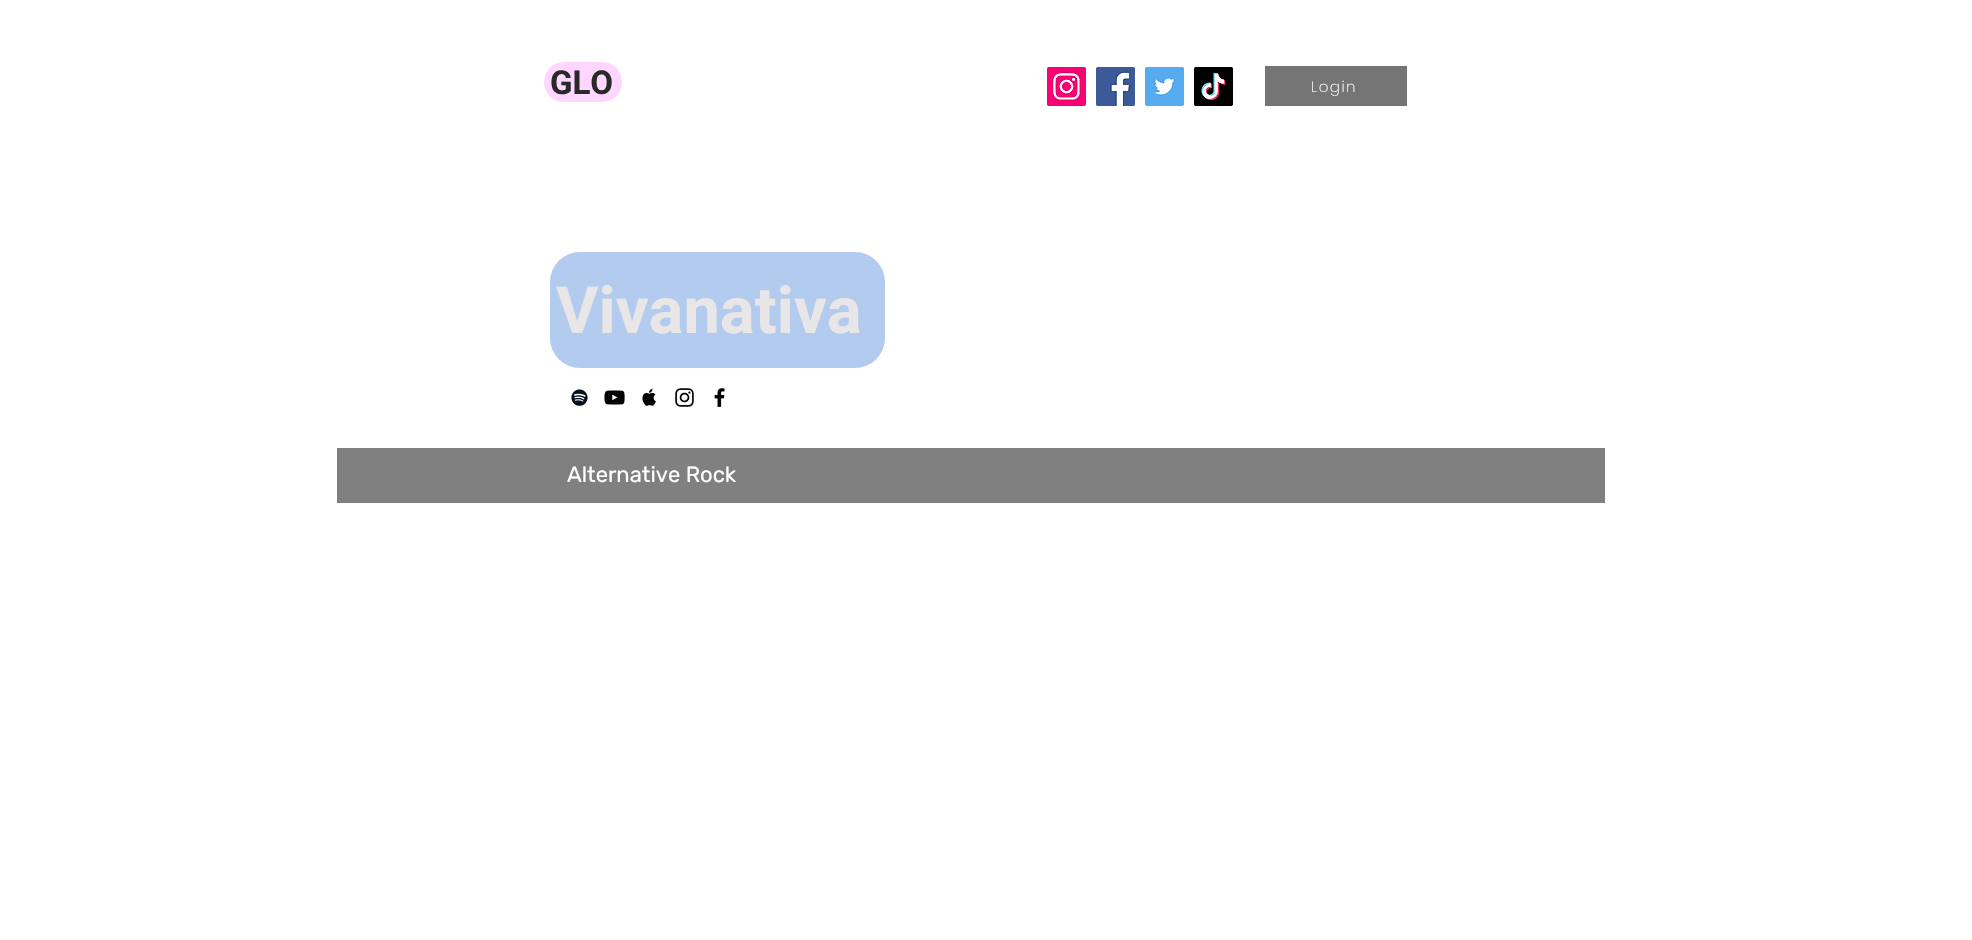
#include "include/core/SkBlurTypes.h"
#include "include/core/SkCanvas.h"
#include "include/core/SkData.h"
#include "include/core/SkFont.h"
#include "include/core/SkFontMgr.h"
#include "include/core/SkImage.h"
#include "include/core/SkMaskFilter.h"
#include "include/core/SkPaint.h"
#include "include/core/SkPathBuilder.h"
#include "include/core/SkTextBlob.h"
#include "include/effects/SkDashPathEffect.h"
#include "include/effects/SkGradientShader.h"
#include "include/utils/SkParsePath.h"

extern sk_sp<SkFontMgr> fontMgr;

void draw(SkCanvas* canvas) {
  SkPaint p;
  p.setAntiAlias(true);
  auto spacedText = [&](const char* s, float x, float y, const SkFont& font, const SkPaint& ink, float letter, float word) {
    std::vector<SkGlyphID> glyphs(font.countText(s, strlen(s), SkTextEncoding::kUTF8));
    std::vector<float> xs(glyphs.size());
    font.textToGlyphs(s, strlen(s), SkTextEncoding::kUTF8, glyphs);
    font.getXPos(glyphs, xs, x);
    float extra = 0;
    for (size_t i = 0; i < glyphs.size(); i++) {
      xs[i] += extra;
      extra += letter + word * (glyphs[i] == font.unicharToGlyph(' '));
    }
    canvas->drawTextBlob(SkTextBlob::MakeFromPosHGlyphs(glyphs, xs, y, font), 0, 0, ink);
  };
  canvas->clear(SK_ColorWHITE);
  p.setColor(SkColorSetRGB(255, 214, 255));
  canvas->drawRoundRect(SkRect::MakeLTRB(544, 62, 622, 102), 20, 20, p);
  canvas->drawImageRect(SkImages::DeferredFromEncodedData(SkData::MakeFromFileName("images/1.png")), SkRect::MakeLTRB(1047, 67, 1086, 106), SkSamplingOptions());
  canvas->drawImageRect(SkImages::DeferredFromEncodedData(SkData::MakeFromFileName("images/2.png")), SkRect::MakeLTRB(1096, 67, 1135, 106), SkSamplingOptions());
  canvas->drawImageRect(SkImages::DeferredFromEncodedData(SkData::MakeFromFileName("images/3.png")), SkRect::MakeLTRB(1145, 67, 1184, 106), SkSamplingOptions());
  canvas->drawImageRect(SkImages::DeferredFromEncodedData(SkData::MakeFromFileName("images/4.png")), SkRect::MakeLTRB(1194, 67, 1233, 106), SkSamplingOptions());
  p.setColor(SkColorSetRGB(117, 117, 117));
  canvas->drawRect(SkRect::MakeLTRB(1265, 66, 1407, 106), p);
  p.setColor(SkColorSetRGB(178, 203, 238));
  canvas->drawRoundRect(SkRect::MakeLTRB(550, 252, 885, 368), 30, 30, p);
  canvas->drawImageRect(SkImages::DeferredFromEncodedData(SkData::MakeFromFileName("images/5.png")), SkRect::MakeLTRB(571, 389, 588, 406), SkSamplingOptions());
  canvas->drawImageRect(SkImages::DeferredFromEncodedData(SkData::MakeFromFileName("images/6.png")), SkRect::MakeLTRB(604, 390, 625, 405), SkSamplingOptions());
  canvas->drawImageRect(SkImages::DeferredFromEncodedData(SkData::MakeFromFileName("images/7.png")), SkRect::MakeLTRB(642, 388, 656, 406), SkSamplingOptions());
  canvas->drawImageRect(SkImages::DeferredFromEncodedData(SkData::MakeFromFileName("images/8.png")), SkRect::MakeLTRB(675, 388, 694, 407), SkSamplingOptions());
  canvas->drawImageRect(SkImages::DeferredFromEncodedData(SkData::MakeFromFileName("images/9.png")), SkRect::MakeLTRB(714, 388, 725, 408), SkSamplingOptions());
  p.setColor(SkColorSetRGB(128, 128, 128));
  canvas->drawRect(SkRect::MakeLTRB(337, 448, 1605, 503), p);
  SkFont font1(fontMgr->matchFamilyStyle("Roboto", SkFontStyle::Bold()), 33);
  font1.setSubpixel(true);
  p.setColor(SkColorSetRGB(41, 41, 41));
  canvas->drawString("GLO", 550, 94, font1, p);
  SkFont font2(fontMgr->matchFamilyStyle("Poppins", SkFontStyle(200, SkFontStyle::kNormal_Width, SkFontStyle::kUpright_Slant)), 15);
  font2.setSubpixel(true);
  p.setColor(SK_ColorWHITE);
  spacedText("Login", 1311, 92, font2, p, 1.5f, 0);
  SkFont font3(fontMgr->matchFamilyStyle("Roboto", SkFontStyle::Bold()), 65);
  font3.setSubpixel(true);
  p.setColor(SkColorSetRGB(232, 230, 230));
  canvas->drawString("Vivanativa", 556, 333, font3, p);
  SkFont font4(fontMgr->matchFamilyStyle("Rubik", SkFontStyle::Normal()), 22);
  font4.setSubpixel(true);
  p.setColor(SK_ColorWHITE);
  canvas->drawString("Alternative Rock", 567, 482, font4, p);
}
